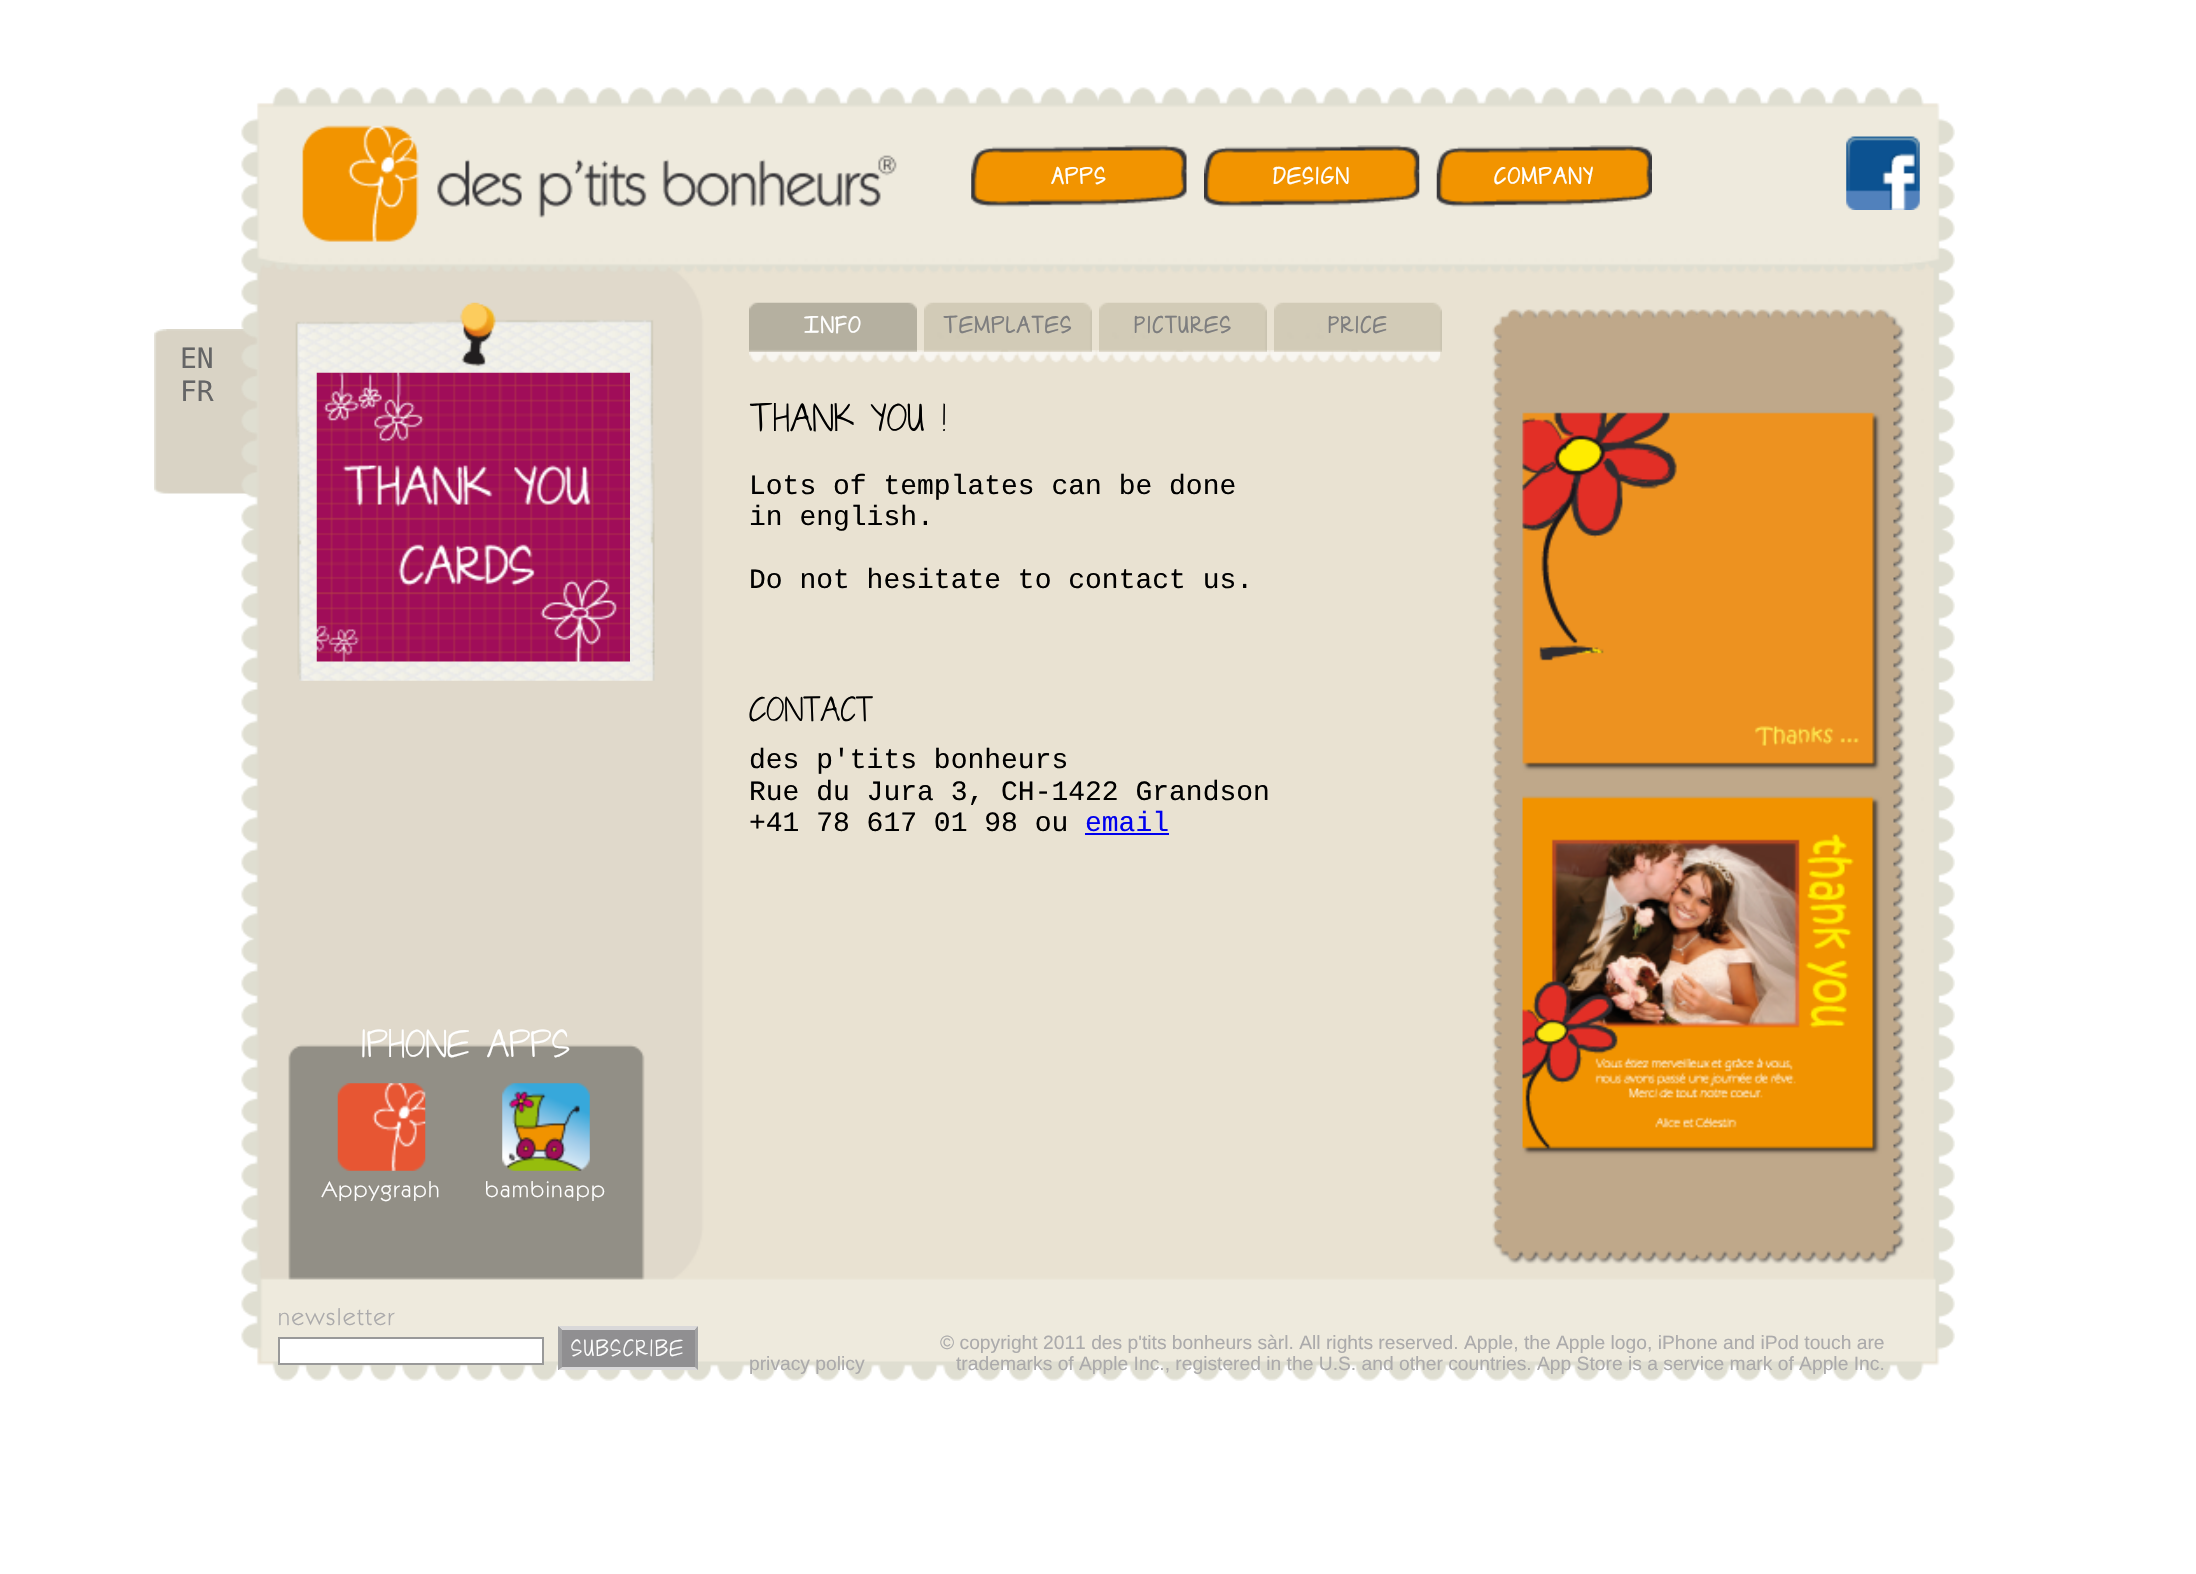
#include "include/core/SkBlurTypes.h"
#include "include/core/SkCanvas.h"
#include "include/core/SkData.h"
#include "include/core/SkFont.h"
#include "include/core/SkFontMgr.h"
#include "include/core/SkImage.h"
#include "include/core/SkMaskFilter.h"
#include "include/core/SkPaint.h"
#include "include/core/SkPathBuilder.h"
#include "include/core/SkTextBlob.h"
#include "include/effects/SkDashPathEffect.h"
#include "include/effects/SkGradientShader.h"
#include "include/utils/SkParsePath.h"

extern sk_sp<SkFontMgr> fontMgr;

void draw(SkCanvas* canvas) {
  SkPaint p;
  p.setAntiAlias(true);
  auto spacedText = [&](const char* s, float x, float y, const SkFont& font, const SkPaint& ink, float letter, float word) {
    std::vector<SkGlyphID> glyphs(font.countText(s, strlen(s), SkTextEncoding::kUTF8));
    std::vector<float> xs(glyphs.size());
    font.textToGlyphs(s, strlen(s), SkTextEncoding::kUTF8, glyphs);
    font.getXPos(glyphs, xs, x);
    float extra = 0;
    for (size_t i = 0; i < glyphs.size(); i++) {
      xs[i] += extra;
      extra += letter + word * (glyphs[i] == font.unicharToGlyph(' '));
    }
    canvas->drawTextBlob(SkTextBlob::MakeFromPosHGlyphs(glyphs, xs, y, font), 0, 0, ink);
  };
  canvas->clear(SK_ColorWHITE);
  canvas->drawImageRect(SkImages::DeferredFromEncodedData(SkData::MakeFromFileName("images/6.png")), SkRect::MakeLTRB(154, 329, 258, 494), SkSamplingOptions());
  canvas->drawImageRect(SkImages::DeferredFromEncodedData(SkData::MakeFromFileName("images/1.png")), SkRect::MakeLTRB(241, 87, 1955, 1381), SkSamplingOptions());
  canvas->drawImageRect(SkImages::DeferredFromEncodedData(SkData::MakeFromFileName("images/2.png")), SkRect::MakeLTRB(971, 145, 1187, 207), SkSamplingOptions());
  canvas->drawImageRect(SkImages::DeferredFromEncodedData(SkData::MakeFromFileName("images/3.png")), SkRect::MakeLTRB(1204, 145, 1420, 207), SkSamplingOptions());
  canvas->drawImageRect(SkImages::DeferredFromEncodedData(SkData::MakeFromFileName("images/4.png")), SkRect::MakeLTRB(1436, 145, 1652, 207), SkSamplingOptions());
  canvas->drawImageRect(SkImages::DeferredFromEncodedData(SkData::MakeFromFileName("images/5.png")), SkRect::MakeLTRB(1846, 136, 1920, 210), SkSamplingOptions());
  canvas->drawImageRect(SkImages::DeferredFromEncodedData(SkData::MakeFromFileName("images/11.png")), SkRect::MakeLTRB(749, 350, 1441, 363), SkSamplingOptions());
  canvas->drawImageRect(SkImages::DeferredFromEncodedData(SkData::MakeFromFileName("images/7.png")), SkRect::MakeLTRB(749, 302, 917, 352), SkSamplingOptions());
  canvas->drawImageRect(SkImages::DeferredFromEncodedData(SkData::MakeFromFileName("images/8.png")), SkRect::MakeLTRB(924, 302, 1092, 352), SkSamplingOptions());
  canvas->drawImageRect(SkImages::DeferredFromEncodedData(SkData::MakeFromFileName("images/9.png")), SkRect::MakeLTRB(1099, 302, 1267, 352), SkSamplingOptions());
  canvas->drawImageRect(SkImages::DeferredFromEncodedData(SkData::MakeFromFileName("images/10.png")), SkRect::MakeLTRB(1274, 302, 1442, 352), SkSamplingOptions());
  p.setColor(SkColorSetRGB(0, 0, 238));
  canvas->drawRect(SkRect::MakeLTRB(1085, 833, 1169, 835), p);
  canvas->drawImageRect(SkImages::DeferredFromEncodedData(SkData::MakeFromFileName("images/12.png")), SkRect::MakeLTRB(1492, 309, 1905, 1264), SkSamplingOptions());
  canvas->drawImageRect(SkImages::DeferredFromEncodedData(SkData::MakeFromFileName("images/13.png")), SkRect::MakeLTRB(295, 302, 655, 681), SkSamplingOptions());
  canvas->drawImageRect(SkImages::DeferredFromEncodedData(SkData::MakeFromFileName("images/14.png")), SkRect::MakeLTRB(316, 372, 630, 662), SkSamplingOptions());
  canvas->drawImageRect(SkImages::DeferredFromEncodedData(SkData::MakeFromFileName("images/15.png")), SkRect::MakeLTRB(337, 1083, 426, 1171), SkSamplingOptions());
  canvas->drawImageRect(SkImages::DeferredFromEncodedData(SkData::MakeFromFileName("images/16.png")), SkRect::MakeLTRB(502, 1083, 590, 1171), SkSamplingOptions());
  p.setColor(SK_ColorWHITE);
  canvas->drawRect(SkRect::MakeLTRB(279, 1338, 543, 1364), p);
  p.setStyle(SkPaint::kStroke_Style);
  p.setStrokeWidth(2);
  p.setColor(SkColorSetRGB(153, 153, 153));
  canvas->drawRect(SkRect::MakeLTRB(279, 1338, 543, 1364), p);
  p.setStyle(SkPaint::kFill_Style);
  p.setColor(SkColorSetRGB(144, 143, 145));
  canvas->drawRect(SkRect::MakeLTRB(558, 1327, 698, 1370), p);
  p.setColor(SkColorSetRGB(217, 216, 217));
  canvas->drawPath(SkPathBuilder().moveTo(558, 1326).lineTo(698, 1326).lineTo(695, 1330).lineTo(562, 1330).close().detach(), p);
  p.setColor(SkColorSetRGB(161, 161, 162));
  canvas->drawPath(SkPathBuilder().moveTo(698, 1326).lineTo(698, 1370).lineTo(695, 1367).lineTo(695, 1330).close().detach(), p);
  p.setColor(SkColorSetRGB(217, 216, 217));
  canvas->drawPath(SkPathBuilder().moveTo(698, 1370).lineTo(558, 1370).lineTo(562, 1367).lineTo(695, 1367).close().detach(), p);
  p.setColor(SkColorSetRGB(161, 161, 162));
  canvas->drawPath(SkPathBuilder().moveTo(558, 1370).lineTo(558, 1326).lineTo(562, 1330).lineTo(562, 1367).close().detach(), p);
  SkFont font1(fontMgr->matchFamilyStyle("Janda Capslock", SkFontStyle::Bold()), 21);
  font1.setSubpixel(true);
  p.setColor(SK_ColorWHITE);
  spacedText("Apps", 1051, 184, font1, p, 1.75f, 0);
  spacedText("Design", 1273, 184, font1, p, 1.75f, 0);
  spacedText("Company", 1494, 184, font1, p, 1.75f, 0);
  spacedText("Info", 804, 333, font1, p, 1.75f, 0);
  p.setColor(SkColorSetRGB(126, 126, 127));
  spacedText("Templates", 943, 333, font1, p, 1.75f, 0);
  spacedText("Pictures", 1134, 333, font1, p, 1.75f, 0);
  spacedText("Price", 1328, 333, font1, p, 1.75f, 0);
  SkFont font2(fontMgr->matchFamilyStyle("Janda Capslock", SkFontStyle::Normal()), 35);
  font2.setSubpixel(true);
  p.setColor(SK_ColorBLACK);
  canvas->drawString("Thank you !", 749, 431, font2, p);
  SkFont font3(fontMgr->matchFamilyStyle("Liberation Mono", SkFontStyle::Normal()), 28);
  font3.setSubpixel(true);
  canvas->drawString("Lots of templates can be done", 749, 494, font3, p);
  canvas->drawString("in english.", 749, 525, font3, p);
  canvas->drawString("Do not hesitate to contact us.", 749, 588, font3, p);
  SkFont font4(fontMgr->matchFamilyStyle("Janda Capslock", SkFontStyle::Normal()), 31);
  font4.setSubpixel(true);
  canvas->drawString("Contact", 749, 721, font4, p);
  canvas->drawString("des p'tits bonheurs", 749, 768, font3, p);
  canvas->drawString("Rue du Jura 3, CH-1422 Grandson", 749, 800, font3, p);
  canvas->drawString("+41 78 617 01 98 ou", 749, 831, font3, p);
  p.setColor(SkColorSetRGB(0, 0, 238));
  canvas->drawString("email", 1085, 831, font3, p);
  SkFont font5(fontMgr->matchFamilyStyle("DejaVu Sans Mono", SkFontStyle::Normal()), 28);
  font5.setSubpixel(true);
  p.setColor(SkColorSetRGB(101, 101, 102));
  canvas->drawString("EN", 180, 368, font5, p);
  canvas->drawString("FR", 180, 401, font5, p);
  p.setColor(SK_ColorWHITE);
  canvas->drawString("iphone apps", 360, 1057, font2, p);
  SkFont font6(fontMgr->matchFamilyStyle("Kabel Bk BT", SkFontStyle::Normal()), 22.5f);
  font6.setSubpixel(true);
  spacedText("Appygraph", 322, 1197, font6, p, 1.75f, 0);
  spacedText("bambinapp", 485, 1197, font6, p, 1.75f, 0);
  SkFont font7(fontMgr->matchFamilyStyle("Kabel Bk BT", SkFontStyle::Normal()), 24);
  font7.setSubpixel(true);
  p.setColor(SkColorSetRGB(171, 170, 171));
  spacedText("newsletter", 278, 1325, font7, p, 1.75f, 0);
  SkFont font8(fontMgr->matchFamilyStyle("Janda Capslock", SkFontStyle::Normal()), 21);
  font8.setSubpixel(true);
  p.setColor(SK_ColorWHITE);
  spacedText("subscribe", 571, 1356, font8, p, 1.75f, 0);
  SkFont font9(fontMgr->matchFamilyStyle("Liberation Sans", SkFontStyle::Normal()), 19.25f);
  font9.setSubpixel(true);
  p.setColor(SkColorSetRGB(171, 170, 171));
  canvas->drawString("privacy policy", 749, 1370, font9, p);
  canvas->drawString("© copyright 2011 des p'tits bonheurs sàrl. All rights reserved. Apple, the Apple logo, iPhone and iPod touch are", 940, 1349, font9, p);
  canvas->drawString("trademarks of Apple Inc., registered in the U.S. and other countries. App Store is a service mark of Apple Inc.", 956, 1370, font9, p);
}
